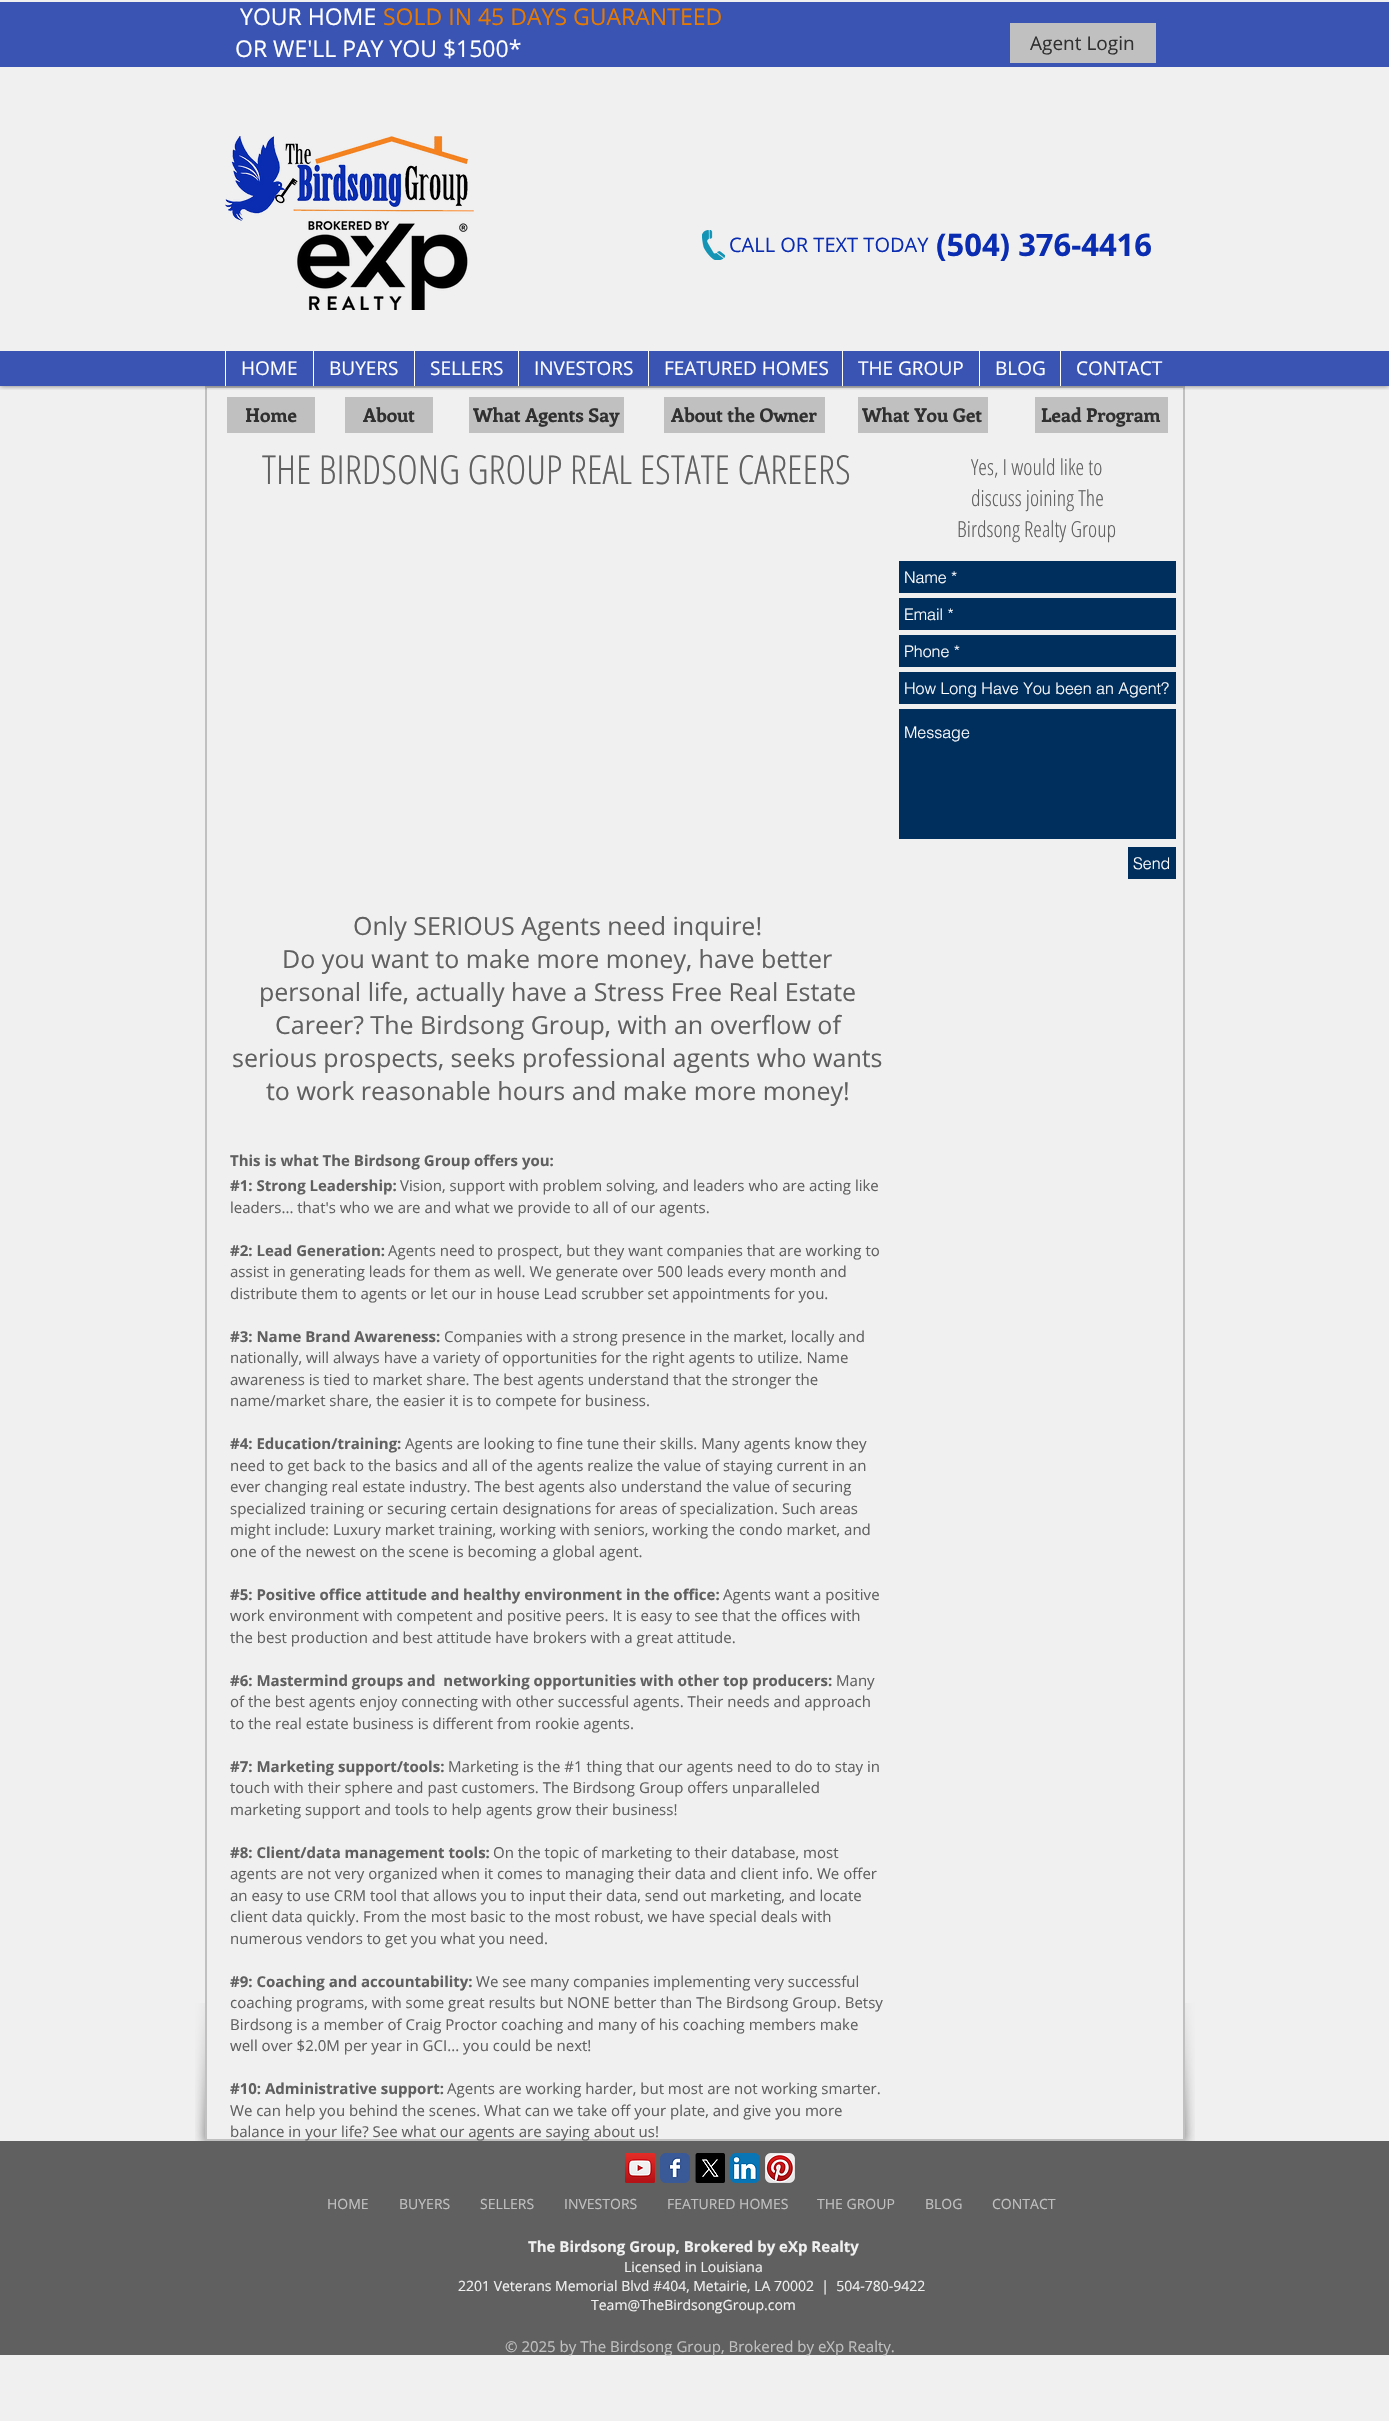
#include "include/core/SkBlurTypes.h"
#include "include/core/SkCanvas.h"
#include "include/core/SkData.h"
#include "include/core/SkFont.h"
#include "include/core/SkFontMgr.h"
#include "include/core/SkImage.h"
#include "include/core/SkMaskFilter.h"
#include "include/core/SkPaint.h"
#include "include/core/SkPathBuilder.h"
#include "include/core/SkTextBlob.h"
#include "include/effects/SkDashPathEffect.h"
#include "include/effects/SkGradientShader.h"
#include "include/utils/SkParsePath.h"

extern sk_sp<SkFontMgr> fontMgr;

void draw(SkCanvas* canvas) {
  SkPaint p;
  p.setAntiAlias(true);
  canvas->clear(SkColorSetRGB(240, 240, 240));
  p.setStyle(SkPaint::kStroke_Style);
  p.setStrokeWidth(2);
  p.setColor(SkColorSetRGB(192, 192, 192));
  canvas->drawRect(SkRect::MakeLTRB(206, 387, 1184, 2140), p);
  canvas->save();
  canvas->clipRect(SkRect::MakeLTRB(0, 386, 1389, 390));
  p.setStyle(SkPaint::kFill_Style);
  p.setColor(SkColorSetARGB(128, 0, 0, 0));
  p.setMaskFilter(SkMaskFilter::MakeBlur(kNormal_SkBlurStyle, 2.5f));
  canvas->drawRect(SkRect::MakeLTRB(0, 0, 1389, 386), p);
  p.setMaskFilter(nullptr);
  canvas->restore();
  p.setColor(SkColorSetRGB(58, 84, 180));
  canvas->drawRect(SkRect::MakeLTRB(0, 2, 1389, 67), p);
  p.setColor(SkColorSetRGB(192, 192, 192));
  canvas->drawRect(SkRect::MakeLTRB(1010, 23, 1156, 63), p);
  canvas->drawImageRect(SkImages::DeferredFromEncodedData(SkData::MakeFromFileName("images/1.png")), SkRect::MakeLTRB(225, 136, 474, 310), SkSamplingOptions());
  canvas->drawImageRect(SkImages::DeferredFromEncodedData(SkData::MakeFromFileName("images/2.png")), SkRect::MakeLTRB(702, 230, 725, 260), SkSamplingOptions());
  p.setColor(SkColorSetRGB(58, 84, 180));
  canvas->drawRect(SkRect::MakeLTRB(0, 351, 1389, 386), p);
  p.setColor(SK_ColorWHITE);
  canvas->drawRect(SkRect::MakeLTRB(225, 351, 226, 386), p);
  canvas->drawRect(SkRect::MakeLTRB(313, 351, 314, 386), p);
  canvas->drawRect(SkRect::MakeLTRB(414, 351, 415, 386), p);
  canvas->drawRect(SkRect::MakeLTRB(518, 351, 519, 386), p);
  canvas->drawRect(SkRect::MakeLTRB(648, 351, 649, 386), p);
  canvas->drawRect(SkRect::MakeLTRB(842, 351, 843, 386), p);
  canvas->drawRect(SkRect::MakeLTRB(979, 351, 980, 386), p);
  canvas->drawRect(SkRect::MakeLTRB(1060, 351, 1061, 386), p);
  canvas->drawImageRect(SkImages::DeferredFromEncodedData(SkData::MakeFromFileName("images/3.png")), SkRect::MakeLTRB(195, 2003, 205, 2141), SkSamplingOptions());
  canvas->drawImageRect(SkImages::DeferredFromEncodedData(SkData::MakeFromFileName("images/4.png")), SkRect::MakeLTRB(1185, 2003, 1195, 2141), SkSamplingOptions());
  p.setColor(SkColorSetRGB(192, 192, 192));
  canvas->drawRect(SkRect::MakeLTRB(227, 397, 315, 433), p);
  canvas->drawRect(SkRect::MakeLTRB(345, 397, 433, 433), p);
  canvas->drawRect(SkRect::MakeLTRB(469, 397, 624, 433), p);
  canvas->drawRect(SkRect::MakeLTRB(664, 397, 825, 433), p);
  canvas->drawRect(SkRect::MakeLTRB(858, 397, 988, 433), p);
  canvas->drawRect(SkRect::MakeLTRB(1035, 397, 1168, 433), p);
  p.setColor(SkColorSetRGB(0, 46, 93));
  canvas->drawRect(SkRect::MakeLTRB(899, 561, 1176, 593), p);
  canvas->drawRect(SkRect::MakeLTRB(899, 598, 1176, 630), p);
  canvas->drawRect(SkRect::MakeLTRB(899, 635, 1176, 667), p);
  canvas->drawRect(SkRect::MakeLTRB(899, 672, 1176, 704), p);
  canvas->drawRect(SkRect::MakeLTRB(899, 709, 1176, 839), p);
  canvas->drawRect(SkRect::MakeLTRB(1128, 847, 1176, 879), p);
  p.setColor(SkColorSetRGB(96, 96, 96));
  canvas->drawRect(SkRect::MakeLTRB(0, 2141, 1389, 2355), p);
  canvas->drawImageRect(SkImages::DeferredFromEncodedData(SkData::MakeFromFileName("images/5.png")), SkRect::MakeLTRB(625, 2153, 655, 2183), SkSamplingOptions());
  canvas->drawImageRect(SkImages::DeferredFromEncodedData(SkData::MakeFromFileName("images/6.png")), SkRect::MakeLTRB(660, 2153, 690, 2183), SkSamplingOptions());
  canvas->drawImageRect(SkImages::DeferredFromEncodedData(SkData::MakeFromFileName("images/7.png")), SkRect::MakeLTRB(695, 2153, 725, 2183), SkSamplingOptions());
  canvas->drawImageRect(SkImages::DeferredFromEncodedData(SkData::MakeFromFileName("images/8.png")), SkRect::MakeLTRB(730, 2153, 760, 2183), SkSamplingOptions());
  canvas->drawImageRect(SkImages::DeferredFromEncodedData(SkData::MakeFromFileName("images/9.png")), SkRect::MakeLTRB(765, 2153, 795, 2183), SkSamplingOptions());
  SkFont font1(fontMgr->matchFamilyStyle("Open Sans", SkFontStyle::Normal()), 23);
  font1.setSubpixel(true);
  p.setColor(SK_ColorWHITE);
  canvas->drawString("YOUR HOME", 240, 25, font1, p);
  p.setColor(SkColorSetRGB(230, 122, 0));
  canvas->drawString("SOLD IN 45 DAYS GUARANTEED", 383, 25, font1, p);
  p.setColor(SK_ColorWHITE);
  canvas->drawString("OR WE'LL PAY YOU $1500*", 235, 57, font1, p);
  SkFont font2(fontMgr->matchFamilyStyle("Open Sans", SkFontStyle::Normal()), 19);
  font2.setSubpixel(true);
  p.setColor(SkColorSetRGB(48, 48, 48));
  canvas->drawString("Agent Login", 1030, 50, font2, p);
  SkFont font3(fontMgr->matchFamilyStyle("Open Sans", SkFontStyle::Normal()), 20);
  font3.setSubpixel(true);
  p.setColor(SkColorSetRGB(10, 44, 177));
  canvas->drawString("CALL OR TEXT TODAY", 729, 252, font3, p);
  SkFont font4(fontMgr->matchFamilyStyle("Open Sans", SkFontStyle::Bold()), 31);
  font4.setSubpixel(true);
  canvas->drawString("(504) 376-4416", 936, 256, font4, p);
  p.setColor(SK_ColorWHITE);
  canvas->drawString("HOME", 241, 375, font2, p);
  canvas->drawString("BUYERS", 329, 375, font2, p);
  canvas->drawString("SELLERS", 430, 375, font2, p);
  canvas->drawString("INVESTORS", 534, 375, font2, p);
  canvas->drawString("FEATURED HOMES", 664, 375, font2, p);
  canvas->drawString("THE GROUP", 858, 375, font2, p);
  canvas->drawString("BLOG", 995, 375, font2, p);
  canvas->drawString("CONTACT", 1076, 375, font2, p);
  SkFont font5(fontMgr->matchFamilyStyle("Enriqueta", SkFontStyle::Bold()), 19);
  font5.setSubpixel(true);
  p.setColor(SkColorSetRGB(48, 48, 48));
  canvas->drawString("Home", 245, 422, font5, p);
  canvas->drawString("About", 363, 422, font5, p);
  canvas->drawString("What Agents Say", 473, 422, font5, p);
  canvas->drawString("About the Owner", 671, 422, font5, p);
  canvas->drawString("What You Get", 862, 422, font5, p);
  canvas->drawString("Lead Program", 1041, 422, font5, p);
  SkFont font6(fontMgr->matchFamilyStyle("Open Sans Condensed", SkFontStyle(300, SkFontStyle::kNormal_Width, SkFontStyle::kUpright_Slant)), 40);
  font6.setSubpixel(true);
  p.setColor(SkColorSetRGB(96, 96, 96));
  canvas->drawString("THE BIRDSONG GROUP REAL ESTATE CAREERS", 262, 484, font6, p);
  SkFont font7(fontMgr->matchFamilyStyle("Open Sans Condensed", SkFontStyle(300, SkFontStyle::kNormal_Width, SkFontStyle::kUpright_Slant)), 22);
  font7.setSubpixel(true);
  canvas->drawString("Yes, I would like to", 971, 475, font7, p);
  canvas->drawString("discuss joining The", 971, 506, font7, p);
  canvas->drawString("Birdsong Realty Group", 957, 537, font7, p);
  SkFont font8(fontMgr->matchFamilyStyle("helvetica", SkFontStyle(300, SkFontStyle::kNormal_Width, SkFontStyle::kUpright_Slant)), 16);
  font8.setSubpixel(true);
  p.setColor(SK_ColorWHITE);
  canvas->drawString("Name *", 904, 583, font8, p);
  canvas->drawString("Email *", 904, 620, font8, p);
  canvas->drawString("Phone *", 904, 657, font8, p);
  canvas->drawString("How Long Have You been an Agent?", 904, 694, font8, p);
  canvas->drawString("Message", 904, 738, font8, p);
  canvas->drawString("Send", 1133, 869, font8, p);
  SkFont font9(fontMgr->matchFamilyStyle("Open Sans", SkFontStyle::Normal()), 25);
  font9.setSubpixel(true);
  p.setColor(SkColorSetRGB(96, 96, 96));
  canvas->drawString("Only SERIOUS Agents need inquire!", 353, 935, font9, p);
  canvas->drawString("Do you want to make more money, have better", 282, 968, font9, p);
  canvas->drawString("personal life, actually have a Stress Free Real Estate", 259, 1001, font9, p);
  canvas->drawString("Career? The Birdsong Group, with an overflow of", 275, 1034, font9, p);
  canvas->drawString("serious prospects, seeks professional agents who wants", 232, 1067, font9, p);
  canvas->drawString("to work reasonable hours and make more money!", 266, 1100, font9, p);
  SkFont font10(fontMgr->matchFamilyStyle("Open Sans", SkFontStyle::Bold()), 15);
  font10.setSubpixel(true);
  canvas->drawString("This is what The Birdsong Group offers you:", 230, 1166, font10, p);
  canvas->drawString("#1: Strong Leadership:", 230, 1191, font10, p);
  SkFont font11(fontMgr->matchFamilyStyle("Open Sans", SkFontStyle::Normal()), 15);
  font11.setSubpixel(true);
  canvas->drawString("Vision, support with problem solving, and leaders who are acting like", 400, 1191, font11, p);
  canvas->drawString("leaders... that's who we are and what we provide to all of our agents.", 230, 1213, font11, p);
  canvas->drawString("#2: Lead Generation:", 230, 1256, font10, p);
  canvas->drawString("Agents need to prospect, but they want companies that are working to", 388, 1256, font11, p);
  canvas->drawString("assist in generating leads for them as well. We generate over 500 leads every month and", 230, 1277, font11, p);
  canvas->drawString("distribute them to agents or let our in house Lead scrubber set appointments for you.", 230, 1299, font11, p);
  canvas->drawString("#3: Name Brand Awareness:", 230, 1342, font10, p);
  canvas->drawString("Companies with a strong presence in the market, locally and", 444, 1342, font11, p);
  canvas->drawString("nationally, will always have a variety of opportunities for the right agents to utilize. Name", 230, 1363, font11, p);
  canvas->drawString("awareness is tied to market share. The best agents understand that the stronger the", 230, 1385, font11, p);
  canvas->drawString("name/market share, the easier it is to compete for business.", 230, 1406, font11, p);
  canvas->drawString("#4: Education/training:", 230, 1449, font10, p);
  canvas->drawString("Agents are looking to fine tune their skills. Many agents know they", 405, 1449, font11, p);
  canvas->drawString("need to get back to the basics and all of the agents realize the value of staying current in an", 230, 1471, font11, p);
  canvas->drawString("ever changing real estate industry. The best agents also understand the value of securing", 230, 1492, font11, p);
  canvas->drawString("specialized training or securing certain designations for areas of specialization. Such areas", 230, 1514, font11, p);
  canvas->drawString("might include: Luxury market training, working with seniors, working the condo market, and", 230, 1535, font11, p);
  canvas->drawString("one of the newest on the scene is becoming a global agent.", 230, 1557, font11, p);
  canvas->drawString("#5: Positive office attitude and healthy environment in the office:", 230, 1600, font10, p);
  canvas->drawString("Agents want a positive", 723, 1600, font11, p);
  canvas->drawString("work environment with competent and positive peers. It is easy to see that the offices with", 230, 1621, font11, p);
  canvas->drawString("the best production and best attitude have brokers with a great attitude.", 230, 1643, font11, p);
  canvas->drawString("#6: Mastermind groups and  networking opportunities with other top producers:", 230, 1686, font10, p);
  canvas->drawString("Many", 836, 1686, font11, p);
  canvas->drawString("of the best agents enjoy connecting with other successful agents. Their needs and approach", 230, 1707, font11, p);
  canvas->drawString("to the real estate business is different from rookie agents.", 230, 1729, font11, p);
  canvas->drawString("#7: Marketing support/tools:", 230, 1772, font10, p);
  canvas->drawString("Marketing is the #1 thing that our agents need to do to stay in", 448, 1772, font11, p);
  canvas->drawString("touch with their sphere and past customers. The Birdsong Group offers unparalleled", 230, 1793, font11, p);
  canvas->drawString("marketing support and tools to help agents grow their business!", 230, 1815, font11, p);
  canvas->drawString("#8: Client/data management tools:", 230, 1858, font10, p);
  canvas->drawString("On the topic of marketing to their database, most", 493, 1858, font11, p);
  canvas->drawString("agents are not very organized when it comes to managing their data and client info. We offer", 230, 1879, font11, p);
  canvas->drawString("an easy to use CRM tool that allows you to input their data, send out marketing, and locate", 230, 1901, font11, p);
  canvas->drawString("client data quickly. From the most basic to the most robust, we have special deals with", 230, 1922, font11, p);
  canvas->drawString("numerous vendors to get you what you need.", 230, 1944, font11, p);
  canvas->drawString("#9: Coaching and accountability:", 230, 1987, font10, p);
  canvas->drawString("We see many companies implementing very successful", 476, 1987, font11, p);
  canvas->drawString("coaching programs, with some great results but NONE better than The Birdsong Group. Betsy", 230, 2008, font11, p);
  canvas->drawString("Birdsong is a member of Craig Proctor coaching and many of his coaching members make", 230, 2030, font11, p);
  canvas->drawString("well over $2.0M per year in GCI... you could be next!", 230, 2051, font11, p);
  canvas->drawString("#10: Administrative support:", 230, 2094, font10, p);
  canvas->drawString("Agents are working harder, but most are not working smarter.", 447, 2094, font11, p);
  canvas->drawString("We can help you behind the scenes. What can we take off your plate, and give you more", 230, 2116, font11, p);
  canvas->drawString("balance in your life? See what our agents are saying about us!", 230, 2137, font11, p);
  SkFont font12(fontMgr->matchFamilyStyle("Open Sans", SkFontStyle::Normal()), 14);
  font12.setSubpixel(true);
  p.setColor(SkColorSetRGB(192, 192, 192));
  canvas->drawString("HOME", 327, 2209, font12, p);
  canvas->drawString("BUYERS", 399, 2209, font12, p);
  canvas->drawString("SELLERS", 480, 2209, font12, p);
  canvas->drawString("INVESTORS", 564, 2209, font12, p);
  canvas->drawString("FEATURED HOMES", 667, 2209, font12, p);
  canvas->drawString("THE GROUP", 817, 2209, font12, p);
  canvas->drawString("BLOG", 925, 2209, font12, p);
  canvas->drawString("CONTACT", 992, 2209, font12, p);
  p.setColor(SkColorSetRGB(240, 240, 240));
  canvas->drawString("The Birdsong Group, Brokered by eXp Realty", 528, 2252, font10, p);
  canvas->drawString("Licensed in Louisiana", 624, 2272, font12, p);
  canvas->drawString("2201 Veterans Memorial Blvd #404, Metairie, LA 70002  |  504-780-9422", 458, 2291, font12, p);
  canvas->drawString("Team@TheBirdsongGroup.com", 591, 2310, font12, p);
  p.setColor(SkColorSetRGB(192, 192, 192));
  canvas->drawString("© 2025 by The Birdsong Group, Brokered by eXp Realty.", 505, 2352, font11, p);
}
